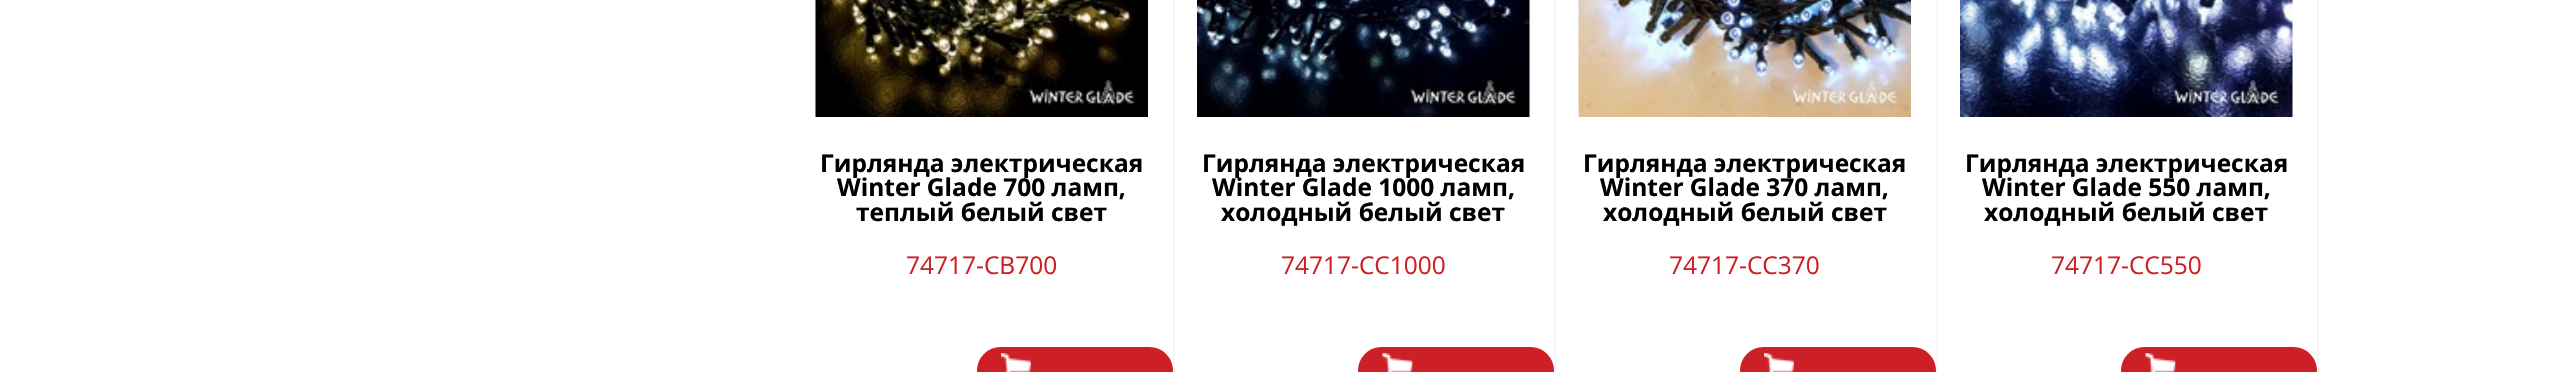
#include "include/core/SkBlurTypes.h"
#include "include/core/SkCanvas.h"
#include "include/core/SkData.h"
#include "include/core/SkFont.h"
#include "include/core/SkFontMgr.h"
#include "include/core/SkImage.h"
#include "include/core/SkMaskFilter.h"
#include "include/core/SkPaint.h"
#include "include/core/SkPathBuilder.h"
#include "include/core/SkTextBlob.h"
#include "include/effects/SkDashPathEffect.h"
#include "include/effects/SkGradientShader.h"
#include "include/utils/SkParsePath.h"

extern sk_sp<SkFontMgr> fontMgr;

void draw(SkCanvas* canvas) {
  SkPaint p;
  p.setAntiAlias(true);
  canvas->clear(SK_ColorWHITE);
  p.setColor(SkColorSetRGB(247, 247, 247));
  canvas->drawRect(SkRect::MakeLTRB(1173, 0, 1175, 372), p);
  canvas->drawImageRect(SkImages::DeferredFromEncodedData(SkData::MakeFromFileName("images/1.png")), SkRect::MakeLTRB(815, 0, 1148, 117), SkSamplingOptions());
  p.setColor(SkColorSetRGB(205, 32, 38));
  canvas->drawRoundRect(SkRect::MakeLTRB(977, 347, 1173, 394), 23.5f, 23.5f, p);
  canvas->drawImageRect(SkImages::DeferredFromEncodedData(SkData::MakeFromFileName("images/2.png")), SkRect::MakeLTRB(1001, 353, 1031, 372), SkSamplingOptions());
  p.setColor(SkColorSetRGB(247, 247, 247));
  canvas->drawRect(SkRect::MakeLTRB(1554, 0, 1556, 372), p);
  canvas->drawImageRect(SkImages::DeferredFromEncodedData(SkData::MakeFromFileName("images/3.png")), SkRect::MakeLTRB(1197, 0, 1530, 117), SkSamplingOptions());
  p.setColor(SkColorSetRGB(205, 32, 38));
  canvas->drawRoundRect(SkRect::MakeLTRB(1358, 347, 1554, 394), 23.5f, 23.5f, p);
  canvas->drawImageRect(SkImages::DeferredFromEncodedData(SkData::MakeFromFileName("images/4.png")), SkRect::MakeLTRB(1382, 353, 1413, 372), SkSamplingOptions());
  p.setColor(SkColorSetRGB(247, 247, 247));
  canvas->drawRect(SkRect::MakeLTRB(1936, 0, 1938, 372), p);
  canvas->drawImageRect(SkImages::DeferredFromEncodedData(SkData::MakeFromFileName("images/5.png")), SkRect::MakeLTRB(1578, 0, 1911, 117), SkSamplingOptions());
  p.setColor(SkColorSetRGB(205, 32, 38));
  canvas->drawRoundRect(SkRect::MakeLTRB(1740, 347, 1936, 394), 23.5f, 23.5f, p);
  canvas->drawImageRect(SkImages::DeferredFromEncodedData(SkData::MakeFromFileName("images/6.png")), SkRect::MakeLTRB(1764, 353, 1794, 372), SkSamplingOptions());
  p.setColor(SkColorSetRGB(247, 247, 247));
  canvas->drawRect(SkRect::MakeLTRB(2317, 0, 2319, 372), p);
  canvas->drawImageRect(SkImages::DeferredFromEncodedData(SkData::MakeFromFileName("images/7.png")), SkRect::MakeLTRB(1960, 0, 2293, 117), SkSamplingOptions());
  p.setColor(SkColorSetRGB(205, 32, 38));
  canvas->drawRoundRect(SkRect::MakeLTRB(2121, 347, 2317, 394), 23.5f, 23.5f, p);
  canvas->drawImageRect(SkImages::DeferredFromEncodedData(SkData::MakeFromFileName("images/4.png")), SkRect::MakeLTRB(2145, 353, 2176, 372), SkSamplingOptions());
  SkFont font1(fontMgr->matchFamilyStyle("Open Sans", SkFontStyle::Bold()), 24.5f);
  font1.setSubpixel(true);
  p.setColor(SK_ColorBLACK);
  canvas->drawString("Гирлянда электрическая", 820, 172, font1, p);
  canvas->drawString("Winter Glade 700 ламп,", 837, 196, font1, p);
  canvas->drawString("теплый белый свет", 856, 221, font1, p);
  SkFont font2(fontMgr->matchFamilyStyle("Open Sans", SkFontStyle::Normal()), 24.5f);
  font2.setSubpixel(true);
  p.setColor(SkColorSetRGB(205, 32, 38));
  canvas->drawString("74717-CB700", 906, 274, font2, p);
  p.setColor(SK_ColorBLACK);
  canvas->drawString("Гирлянда электрическая", 1202, 172, font1, p);
  canvas->drawString("Winter Glade 1000 ламп,", 1212, 196, font1, p);
  canvas->drawString("холодный белый свет", 1221, 221, font1, p);
  p.setColor(SkColorSetRGB(205, 32, 38));
  canvas->drawString("74717-CC1000", 1281, 274, font2, p);
  p.setColor(SK_ColorBLACK);
  canvas->drawString("Гирлянда электрическая", 1583, 172, font1, p);
  canvas->drawString("Winter Glade 370 ламп,", 1600, 196, font1, p);
  canvas->drawString("холодный белый свет", 1603, 221, font1, p);
  p.setColor(SkColorSetRGB(205, 32, 38));
  canvas->drawString("74717-CC370", 1669, 274, font2, p);
  p.setColor(SK_ColorBLACK);
  canvas->drawString("Гирлянда электрическая", 1965, 172, font1, p);
  canvas->drawString("Winter Glade 550 ламп,", 1982, 196, font1, p);
  canvas->drawString("холодный белый свет", 1984, 221, font1, p);
  p.setColor(SkColorSetRGB(205, 32, 38));
  canvas->drawString("74717-CC550", 2051, 274, font2, p);
}
